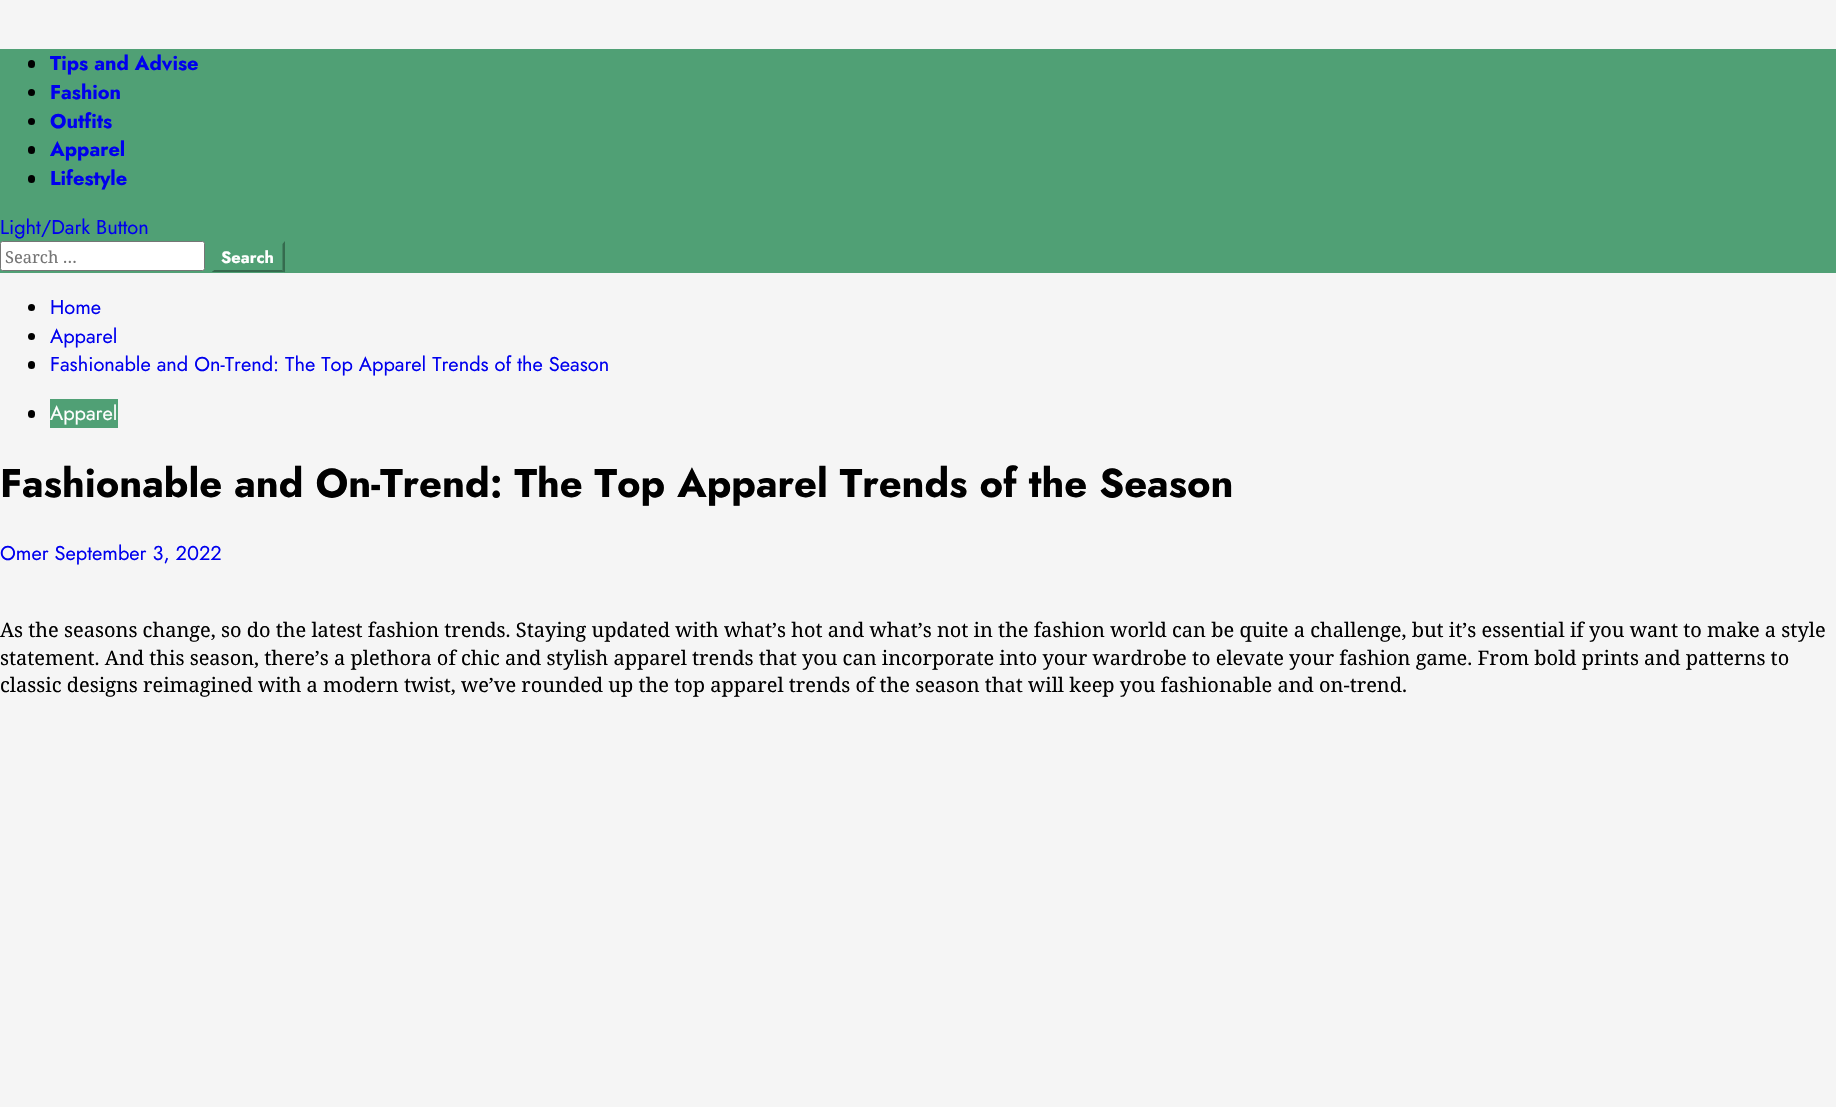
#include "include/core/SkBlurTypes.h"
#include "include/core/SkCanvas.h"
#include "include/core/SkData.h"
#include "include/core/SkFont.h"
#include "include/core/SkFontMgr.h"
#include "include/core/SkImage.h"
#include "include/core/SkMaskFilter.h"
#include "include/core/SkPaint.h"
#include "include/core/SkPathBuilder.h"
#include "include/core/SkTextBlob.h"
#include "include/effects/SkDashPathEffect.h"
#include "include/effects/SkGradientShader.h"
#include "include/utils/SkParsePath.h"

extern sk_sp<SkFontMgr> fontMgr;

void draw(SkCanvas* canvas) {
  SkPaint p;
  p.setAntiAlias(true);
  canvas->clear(SkColorSetRGB(245, 245, 245));
  p.setColor(SkColorSetRGB(80, 160, 117));
  canvas->drawRect(SkRect::MakeLTRB(0, 49, 1836, 273), p);
  p.setColor(SK_ColorBLACK);
  canvas->drawRoundRect(SkRect::MakeLTRB(28, 60, 35, 68), 3.5f, 3.5f, p);
  canvas->drawCircle(31.5f, 92.5f, 3.5f, p);
  canvas->drawCircle(31.5f, 121.5f, 3.5f, p);
  canvas->drawRoundRect(SkRect::MakeLTRB(28, 146, 35, 154), 3.5f, 3.5f, p);
  canvas->drawRoundRect(SkRect::MakeLTRB(28, 175, 35, 183), 3.5f, 3.5f, p);
  p.setColor(SK_ColorWHITE);
  canvas->drawRoundRect(SkRect::MakeLTRB(0.5f, 241.5f, 204.5f, 270.5f), 2, 2, p);
  p.setStyle(SkPaint::kStroke_Style);
  p.setStrokeWidth(1);
  p.setColor(SkColorSetRGB(118, 118, 118));
  canvas->drawRoundRect(SkRect::MakeLTRB(0.5f, 241.5f, 204.5f, 270.5f), 2, 2, p);
  p.setStyle(SkPaint::kFill_Style);
  p.setColor(SkColorSetRGB(53, 107, 78));
  canvas->drawPath(SkPathBuilder().moveTo(285, 241).lineTo(285, 272.5f).lineTo(282.5f, 270).lineTo(282.5f, 244).close().detach(), p);
  canvas->drawPath(SkPathBuilder().moveTo(285, 272).lineTo(211, 272).lineTo(214, 270).lineTo(282, 270).close().detach(), p);
  p.setColor(SkColorSetRGB(80, 160, 117));
  canvas->drawPath(SkPathBuilder().moveTo(211, 272.5f).lineTo(211, 241).lineTo(214, 244).lineTo(214, 270).close().detach(), p);
  p.setColor(SK_ColorBLACK);
  canvas->drawCircle(31.5f, 307.5f, 3.5f, p);
  canvas->drawCircle(31.5f, 336.5f, 3.5f, p);
  canvas->drawRoundRect(SkRect::MakeLTRB(28, 361, 35, 369), 3.5f, 3.5f, p);
  canvas->drawRoundRect(SkRect::MakeLTRB(28, 410, 35, 418), 3.5f, 3.5f, p);
  p.setColor(SkColorSetRGB(80, 160, 117));
  canvas->drawRect(SkRect::MakeLTRB(50, 399, 118, 428), p);
  SkFont font1(fontMgr->matchFamilyStyle("Jost", SkFontStyle::Bold()), 20);
  font1.setSubpixel(true);
  p.setColor(SkColorSetRGB(0, 0, 238));
  canvas->drawString("Tips and Advise", 50, 70, font1, p);
  canvas->drawString("Fashion", 50, 99, font1, p);
  canvas->drawString("Outfits", 50, 128, font1, p);
  canvas->drawString("Apparel", 50, 156, font1, p);
  canvas->drawString("Lifestyle", 50, 185, font1, p);
  SkFont font2(fontMgr->matchFamilyStyle("Jost", SkFontStyle::Normal()), 20);
  font2.setSubpixel(true);
  canvas->drawString("Light/Dark Button", 0, 234, font2, p);
  SkFont font3(fontMgr->matchFamilyStyle("Noto Serif", SkFontStyle::Normal()), 16.5f);
  font3.setSubpixel(true);
  p.setColor(SkColorSetRGB(117, 117, 117));
  canvas->drawString("Search …", 5, 263, font3, p);
  SkFont font4(fontMgr->matchFamilyStyle("Jost", SkFontStyle::Bold()), 16.5f);
  font4.setSubpixel(true);
  p.setColor(SK_ColorWHITE);
  canvas->drawString("Search", 221, 263, font4, p);
  p.setColor(SkColorSetRGB(0, 0, 238));
  canvas->drawString("Home", 50, 314, font2, p);
  canvas->drawString("Apparel", 50, 343, font2, p);
  canvas->drawString("Fashionable and On-Trend: The Top Apparel Trends of the Season", 50, 371, font2, p);
  p.setColor(SK_ColorWHITE);
  canvas->drawString("Apparel", 50, 420, font2, p);
  SkFont font5(fontMgr->matchFamilyStyle("Jost", SkFontStyle::Bold()), 40);
  font5.setSubpixel(true);
  p.setColor(SK_ColorBLACK);
  canvas->drawString("Fashionable and On-Trend: The Top Apparel Trends of the Season", 0, 497, font5, p);
  p.setColor(SkColorSetRGB(0, 0, 238));
  canvas->drawString("Omer September 3, 2022", 0, 560, font2, p);
  SkFont font6(fontMgr->matchFamilyStyle("Noto Serif", SkFontStyle::Normal()), 20);
  font6.setSubpixel(true);
  p.setColor(SK_ColorBLACK);
  canvas->drawString("As the seasons change, so do the latest fashion trends. Staying updated with what’s hot and what’s not in the fashion world can be quite a challenge, but it’s essential if you want to make a style", 0, 637, font6, p);
  canvas->drawString("statement. And this season, there’s a plethora of chic and stylish apparel trends that you can incorporate into your wardrobe to elevate your fashion game. From bold prints and patterns to", 0, 665, font6, p);
  canvas->drawString("classic designs reimagined with a modern twist, we’ve rounded up the top apparel trends of the season that will keep you fashionable and on-trend.", 0, 692, font6, p);
}
